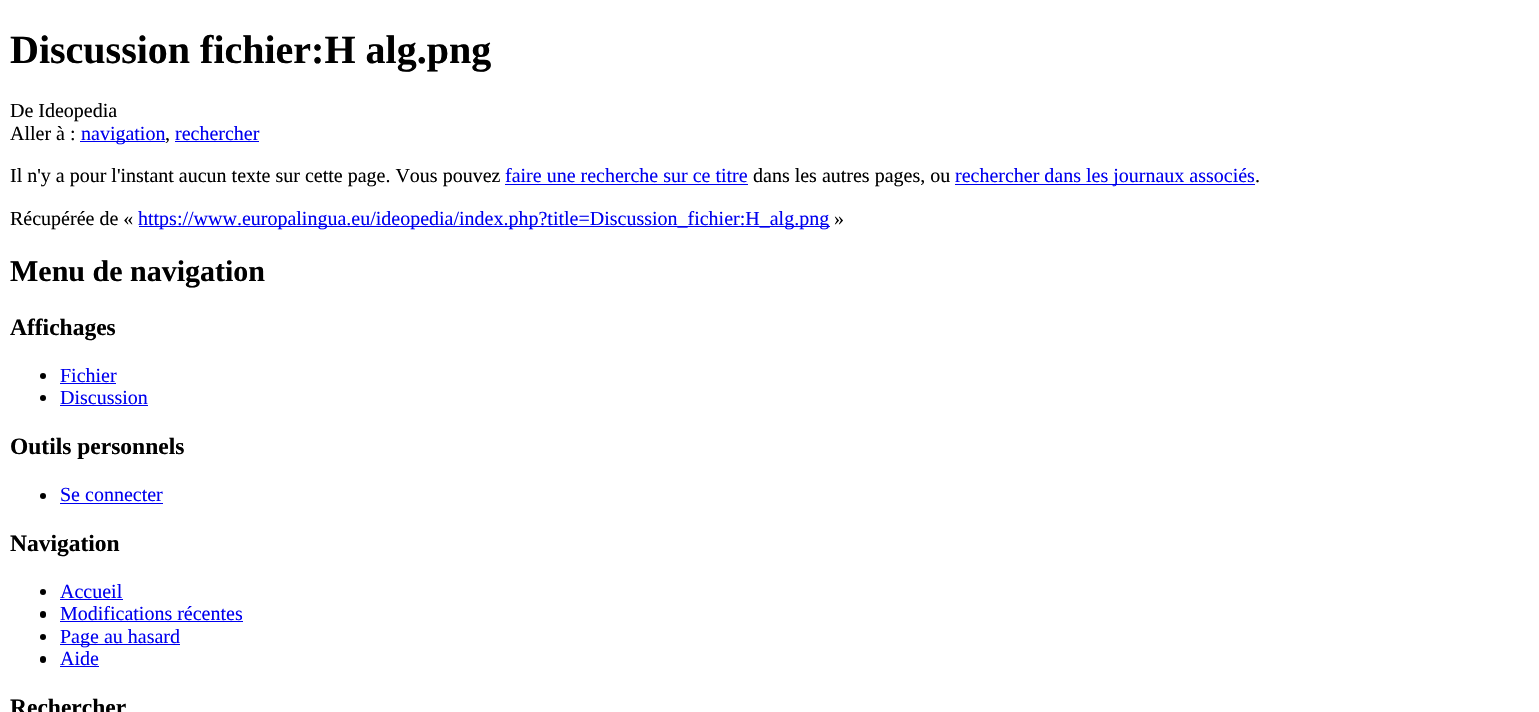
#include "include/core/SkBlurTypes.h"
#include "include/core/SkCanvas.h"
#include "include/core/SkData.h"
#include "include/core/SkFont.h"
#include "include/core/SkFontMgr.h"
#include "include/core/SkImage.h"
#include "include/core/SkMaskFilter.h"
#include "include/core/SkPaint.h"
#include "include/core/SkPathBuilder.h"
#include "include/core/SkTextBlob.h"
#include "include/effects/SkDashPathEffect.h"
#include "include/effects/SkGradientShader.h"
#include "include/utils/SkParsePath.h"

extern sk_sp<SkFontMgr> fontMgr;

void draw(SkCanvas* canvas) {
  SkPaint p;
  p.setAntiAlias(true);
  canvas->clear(SK_ColorWHITE);
  p.setColor(SkColorSetRGB(0, 0, 238));
  canvas->drawRect(SkRect::MakeLTRB(80, 141, 165, 142), p);
  canvas->drawRect(SkRect::MakeLTRB(175, 141, 259, 142), p);
  canvas->drawRect(SkRect::MakeLTRB(505, 184, 748, 185), p);
  canvas->drawRect(SkRect::MakeLTRB(955, 184, 1255, 185), p);
  canvas->drawRect(SkRect::MakeLTRB(139, 226, 830, 227), p);
  p.setColor(SK_ColorBLACK);
  canvas->drawCircle(43, 376, 3, p);
  p.setColor(SkColorSetRGB(0, 0, 238));
  canvas->drawRect(SkRect::MakeLTRB(60, 383, 116, 384), p);
  p.setColor(SK_ColorBLACK);
  canvas->drawCircle(43, 398, 3, p);
  p.setColor(SkColorSetRGB(0, 0, 238));
  canvas->drawRect(SkRect::MakeLTRB(60, 405, 148, 406), p);
  p.setColor(SK_ColorBLACK);
  canvas->drawCircle(43, 496, 3, p);
  p.setColor(SkColorSetRGB(0, 0, 238));
  canvas->drawRect(SkRect::MakeLTRB(60, 503, 163, 504), p);
  p.setColor(SK_ColorBLACK);
  canvas->drawCircle(43, 592, 3, p);
  p.setColor(SkColorSetRGB(0, 0, 238));
  canvas->drawRect(SkRect::MakeLTRB(60, 599, 123, 600), p);
  p.setColor(SK_ColorBLACK);
  canvas->drawRoundRect(SkRect::MakeLTRB(40, 611, 46, 618), 3, 3, p);
  p.setColor(SkColorSetRGB(0, 0, 238));
  canvas->drawRect(SkRect::MakeLTRB(60, 621, 243, 622), p);
  p.setColor(SK_ColorBLACK);
  canvas->drawCircle(43, 637, 3, p);
  p.setColor(SkColorSetRGB(0, 0, 238));
  canvas->drawRect(SkRect::MakeLTRB(60, 644, 180, 645), p);
  p.setColor(SK_ColorBLACK);
  canvas->drawRoundRect(SkRect::MakeLTRB(40, 656, 46, 663), 3, 3, p);
  p.setColor(SkColorSetRGB(0, 0, 238));
  canvas->drawRect(SkRect::MakeLTRB(60, 666, 99, 667), p);
  SkFont font1(fontMgr->matchFamilyStyle("Liberation Serif", SkFontStyle::Bold()), 40);
  font1.setSubpixel(true);
  p.setColor(SK_ColorBLACK);
  canvas->drawString("Discussion fichier:H alg.png", 10, 63, font1, p);
  SkFont font2(fontMgr->matchFamilyStyle("Liberation Serif", SkFontStyle::Normal()), 20);
  font2.setSubpixel(true);
  canvas->drawString("De Ideopedia", 10, 117, font2, p);
  canvas->drawString("Aller à :", 10, 140, font2, p);
  p.setColor(SkColorSetRGB(0, 0, 238));
  canvas->drawString("navigation", 81, 140, font2, p);
  p.setColor(SK_ColorBLACK);
  canvas->drawString(",", 165, 140, font2, p);
  p.setColor(SkColorSetRGB(0, 0, 238));
  canvas->drawString("rechercher", 175, 140, font2, p);
  p.setColor(SK_ColorBLACK);
  canvas->drawString("Il n'y a pour l'instant aucun texte sur cette page. Vous pouvez", 10, 182, font2, p);
  p.setColor(SkColorSetRGB(0, 0, 238));
  canvas->drawString("faire une recherche sur ce titre", 505, 182, font2, p);
  p.setColor(SK_ColorBLACK);
  canvas->drawString("dans les autres pages, ou", 753, 182, font2, p);
  p.setColor(SkColorSetRGB(0, 0, 238));
  canvas->drawString("rechercher dans les journaux associés", 955, 182, font2, p);
  p.setColor(SK_ColorBLACK);
  canvas->drawString(".", 1255, 182, font2, p);
  canvas->drawString("Récupérée de «", 10, 225, font2, p);
  p.setColor(SkColorSetRGB(0, 0, 238));
  canvas->drawString("https://www.europalingua.eu/ideopedia/index.php?title=Discussion_fichier:H_alg.png", 138, 225, font2, p);
  p.setColor(SK_ColorBLACK);
  canvas->drawString("»", 834, 225, font2, p);
  SkFont font3(fontMgr->matchFamilyStyle("Liberation Serif", SkFontStyle::Bold()), 30);
  font3.setSubpixel(true);
  canvas->drawString("Menu de navigation", 10, 281, font3, p);
  SkFont font4(fontMgr->matchFamilyStyle("Liberation Serif", SkFontStyle::Bold()), 23.5f);
  font4.setSubpixel(true);
  canvas->drawString("Affichages", 10, 335, font4, p);
  p.setColor(SkColorSetRGB(0, 0, 238));
  canvas->drawString("Fichier", 60, 382, font2, p);
  canvas->drawString("Discussion", 60, 404, font2, p);
  p.setColor(SK_ColorBLACK);
  canvas->drawString("Outils personnels", 10, 454, font4, p);
  p.setColor(SkColorSetRGB(0, 0, 238));
  canvas->drawString("Se connecter", 60, 501, font2, p);
  p.setColor(SK_ColorBLACK);
  canvas->drawString("Navigation", 10, 551, font4, p);
  p.setColor(SkColorSetRGB(0, 0, 238));
  canvas->drawString("Accueil", 60, 598, font2, p);
  canvas->drawString("Modifications récentes", 60, 620, font2, p);
  canvas->drawString("Page au hasard", 60, 643, font2, p);
  canvas->drawString("Aide", 60, 665, font2, p);
  p.setColor(SK_ColorBLACK);
  canvas->drawString("Rechercher", 10, 715, font4, p);
}
